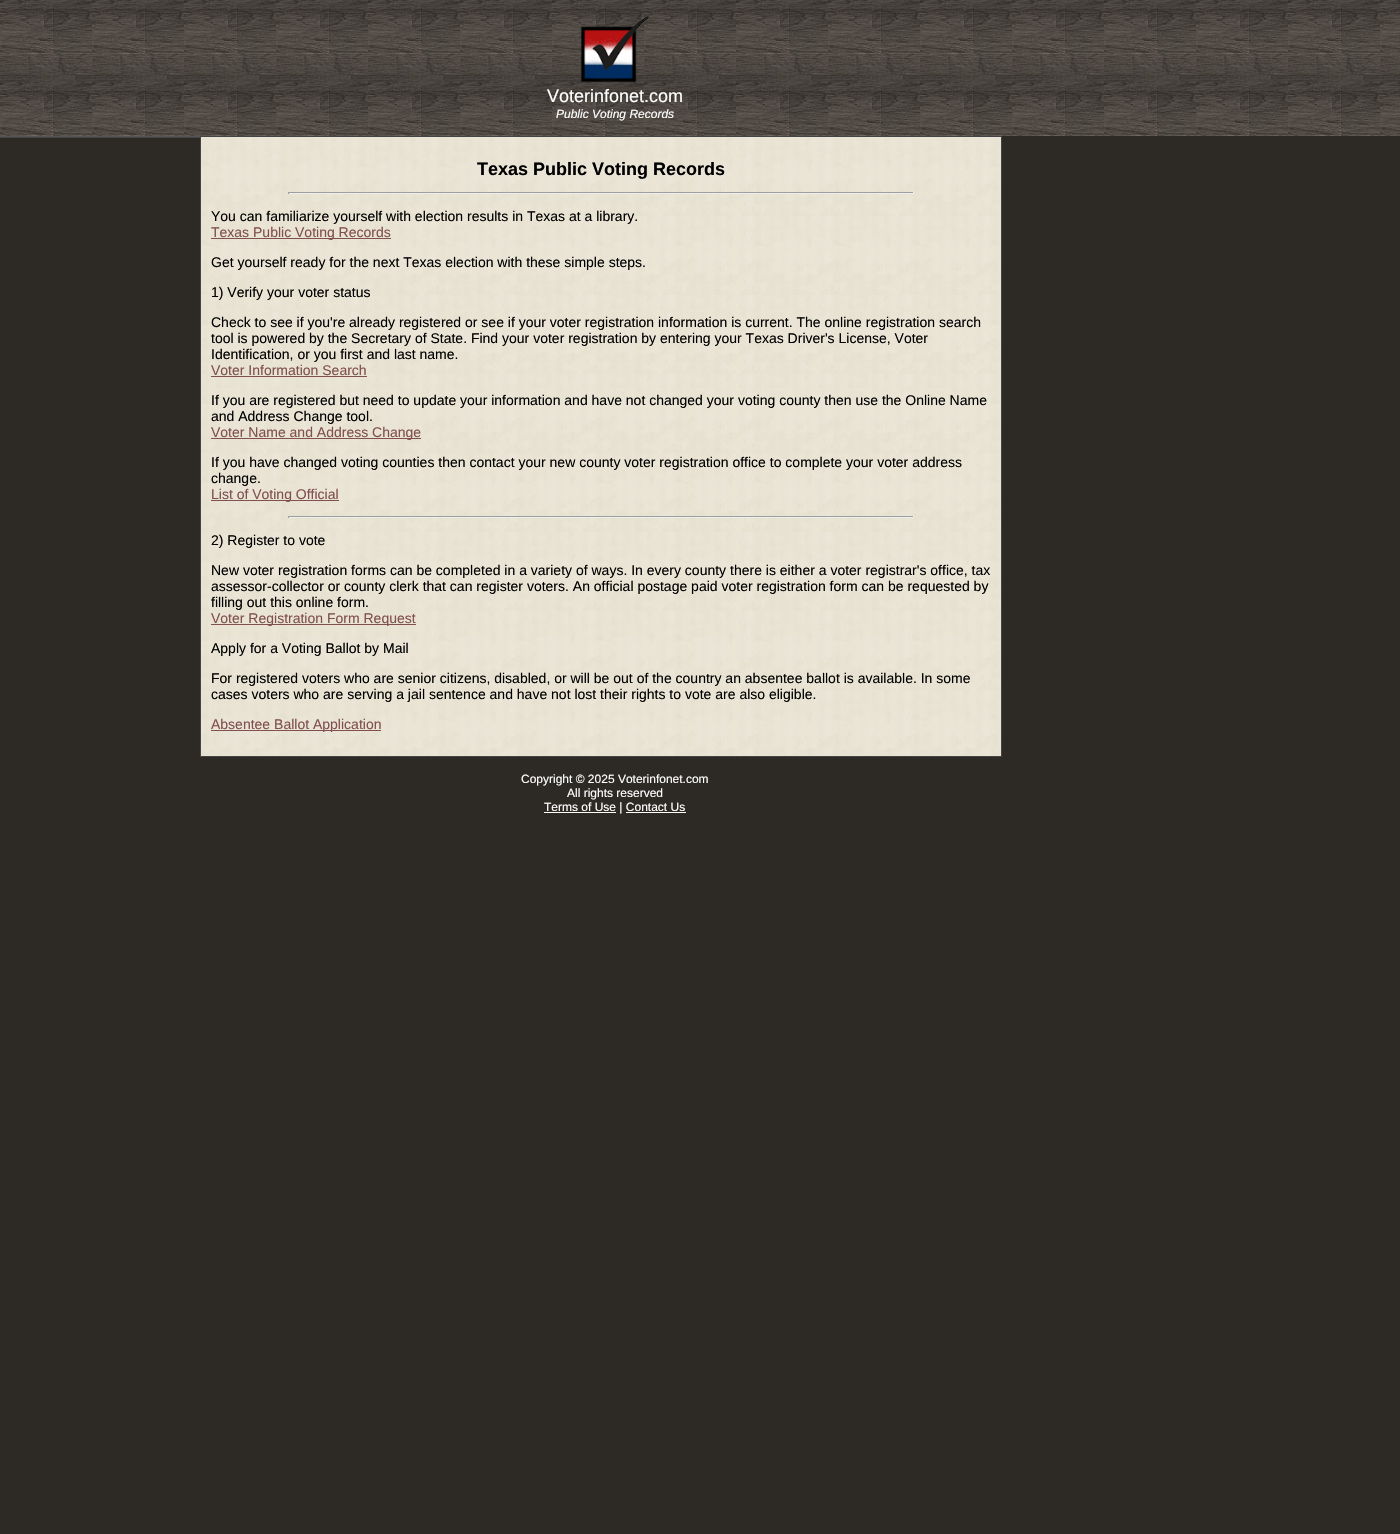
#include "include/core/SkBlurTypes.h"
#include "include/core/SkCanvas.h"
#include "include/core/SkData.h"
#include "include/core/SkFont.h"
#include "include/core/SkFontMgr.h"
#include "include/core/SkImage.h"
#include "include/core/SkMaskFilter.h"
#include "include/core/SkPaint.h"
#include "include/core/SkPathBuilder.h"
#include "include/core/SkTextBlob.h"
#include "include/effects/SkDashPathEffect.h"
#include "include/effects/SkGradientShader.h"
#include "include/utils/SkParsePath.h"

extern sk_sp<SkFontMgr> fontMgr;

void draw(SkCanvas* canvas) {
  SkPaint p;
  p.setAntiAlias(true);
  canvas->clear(SkColorSetRGB(45, 42, 37));
  canvas->drawImageRect(SkImages::DeferredFromEncodedData(SkData::MakeFromFileName("images/1.png")), SkRect::MakeLTRB(0, 0, 1400, 136), SkSamplingOptions());
  canvas->drawImageRect(SkImages::DeferredFromEncodedData(SkData::MakeFromFileName("images/2.png")), SkRect::MakeLTRB(580, 16, 649, 83), SkSamplingOptions());
  p.setColor(SkColorSetRGB(85, 85, 85));
  canvas->drawRect(SkRect::MakeLTRB(0, 136, 200, 137), p);
  p.setColor(SkColorSetRGB(68, 68, 68));
  canvas->drawRect(SkRect::MakeLTRB(0, 137, 200, 138), p);
  canvas->drawImageRect(SkImages::DeferredFromEncodedData(SkData::MakeFromFileName("images/3.png")), SkRect::MakeLTRB(201, 137, 1001, 756), SkSamplingOptions());
  p.setStyle(SkPaint::kStroke_Style);
  p.setStrokeWidth(1);
  canvas->drawRect(SkRect::MakeLTRB(200.5f, 136.5f, 1001.5f, 756.5f), p);
  p.setStyle(SkPaint::kFill_Style);
  p.setColor(SkColorSetRGB(159, 159, 159));
  canvas->drawRect(SkRect::MakeLTRB(288, 192, 914, 193), p);
  p.setColor(SkColorSetRGB(238, 238, 238));
  canvas->drawRect(SkRect::MakeLTRB(913, 192, 914, 194), p);
  canvas->drawRect(SkRect::MakeLTRB(288, 193, 914, 194), p);
  p.setColor(SkColorSetRGB(159, 159, 159));
  canvas->drawRect(SkRect::MakeLTRB(288, 192, 289, 194), p);
  p.setColor(SkColorSetRGB(128, 80, 80));
  canvas->drawRect(SkRect::MakeLTRB(211, 238, 391, 239), p);
  canvas->drawRect(SkRect::MakeLTRB(211, 376, 367, 377), p);
  canvas->drawRect(SkRect::MakeLTRB(211, 438, 421, 439), p);
  canvas->drawRect(SkRect::MakeLTRB(211, 500, 339, 501), p);
  p.setColor(SkColorSetRGB(159, 159, 159));
  canvas->drawRect(SkRect::MakeLTRB(288, 516, 914, 517), p);
  p.setColor(SkColorSetRGB(238, 238, 238));
  canvas->drawRect(SkRect::MakeLTRB(913, 516, 914, 518), p);
  canvas->drawRect(SkRect::MakeLTRB(288, 517, 914, 518), p);
  p.setColor(SkColorSetRGB(159, 159, 159));
  canvas->drawRect(SkRect::MakeLTRB(288, 516, 289, 518), p);
  p.setColor(SkColorSetRGB(128, 80, 80));
  canvas->drawRect(SkRect::MakeLTRB(211, 624, 416, 625), p);
  canvas->drawRect(SkRect::MakeLTRB(211, 730, 381, 731), p);
  p.setColor(SK_ColorWHITE);
  canvas->drawRect(SkRect::MakeLTRB(544, 812, 616, 813), p);
  canvas->drawRect(SkRect::MakeLTRB(626, 812, 686, 813), p);
  SkFont font1(fontMgr->matchFamilyStyle("Liberation Sans", SkFontStyle::Normal()), 18);
  font1.setSubpixel(true);
  canvas->drawString("Voterinfonet.com", 547, 102, font1, p);
  SkFont font2(fontMgr->matchFamilyStyle("Liberation Sans", SkFontStyle::Italic()), 12);
  font2.setSubpixel(true);
  canvas->drawString("Public Voting Records", 556, 118, font2, p);
  SkFont font3(fontMgr->matchFamilyStyle("Liberation Sans", SkFontStyle::Bold()), 18);
  font3.setSubpixel(true);
  p.setColor(SK_ColorBLACK);
  canvas->drawString("Texas Public Voting Records", 477, 175, font3, p);
  SkFont font4(fontMgr->matchFamilyStyle("Liberation Sans", SkFontStyle::Normal()), 14);
  font4.setSubpixel(true);
  canvas->drawString("You can familiarize yourself with election results in Texas at a library.", 211, 221, font4, p);
  p.setColor(SkColorSetRGB(128, 80, 80));
  canvas->drawString("Texas Public Voting Records", 211, 237, font4, p);
  p.setColor(SK_ColorBLACK);
  canvas->drawString("Get yourself ready for the next Texas election with these simple steps.", 211, 267, font4, p);
  canvas->drawString("1) Verify your voter status", 211, 297, font4, p);
  canvas->drawString("Check to see if you're already registered or see if your voter registration information is current. The online registration search", 211, 327, font4, p);
  canvas->drawString("tool is powered by the Secretary of State. Find your voter registration by entering your Texas Driver's License, Voter", 211, 343, font4, p);
  canvas->drawString("Identification, or you first and last name.", 211, 359, font4, p);
  p.setColor(SkColorSetRGB(128, 80, 80));
  canvas->drawString("Voter Information Search", 211, 375, font4, p);
  p.setColor(SK_ColorBLACK);
  canvas->drawString("If you are registered but need to update your information and have not changed your voting county then use the Online Name", 211, 405, font4, p);
  canvas->drawString("and Address Change tool.", 211, 421, font4, p);
  p.setColor(SkColorSetRGB(128, 80, 80));
  canvas->drawString("Voter Name and Address Change", 211, 437, font4, p);
  p.setColor(SK_ColorBLACK);
  canvas->drawString("If you have changed voting counties then contact your new county voter registration office to complete your voter address", 211, 467, font4, p);
  canvas->drawString("change.", 211, 483, font4, p);
  p.setColor(SkColorSetRGB(128, 80, 80));
  canvas->drawString("List of Voting Official", 211, 499, font4, p);
  p.setColor(SK_ColorBLACK);
  canvas->drawString("2) Register to vote", 211, 545, font4, p);
  canvas->drawString("New voter registration forms can be completed in a variety of ways. In every county there is either a voter registrar's office, tax", 211, 575, font4, p);
  canvas->drawString("assessor-collector or county clerk that can register voters. An official postage paid voter registration form can be requested by", 211, 591, font4, p);
  canvas->drawString("filling out this online form.", 211, 607, font4, p);
  p.setColor(SkColorSetRGB(128, 80, 80));
  canvas->drawString("Voter Registration Form Request", 211, 623, font4, p);
  p.setColor(SK_ColorBLACK);
  canvas->drawString("Apply for a Voting Ballot by Mail", 211, 653, font4, p);
  canvas->drawString("For registered voters who are senior citizens, disabled, or will be out of the country an absentee ballot is available. In some", 211, 683, font4, p);
  canvas->drawString("cases voters who are serving a jail sentence and have not lost their rights to vote are also eligible.", 211, 699, font4, p);
  p.setColor(SkColorSetRGB(128, 80, 80));
  canvas->drawString("Absentee Ballot Application", 211, 729, font4, p);
  SkFont font5(fontMgr->matchFamilyStyle("Liberation Sans", SkFontStyle::Normal()), 12);
  font5.setSubpixel(true);
  p.setColor(SK_ColorWHITE);
  canvas->drawString("Copyright © 2025 Voterinfonet.com", 521, 783, font5, p);
  canvas->drawString("All rights reserved", 567, 797, font5, p);
  canvas->drawString("Terms of Use | Contact Us", 544, 811, font5, p);
}
